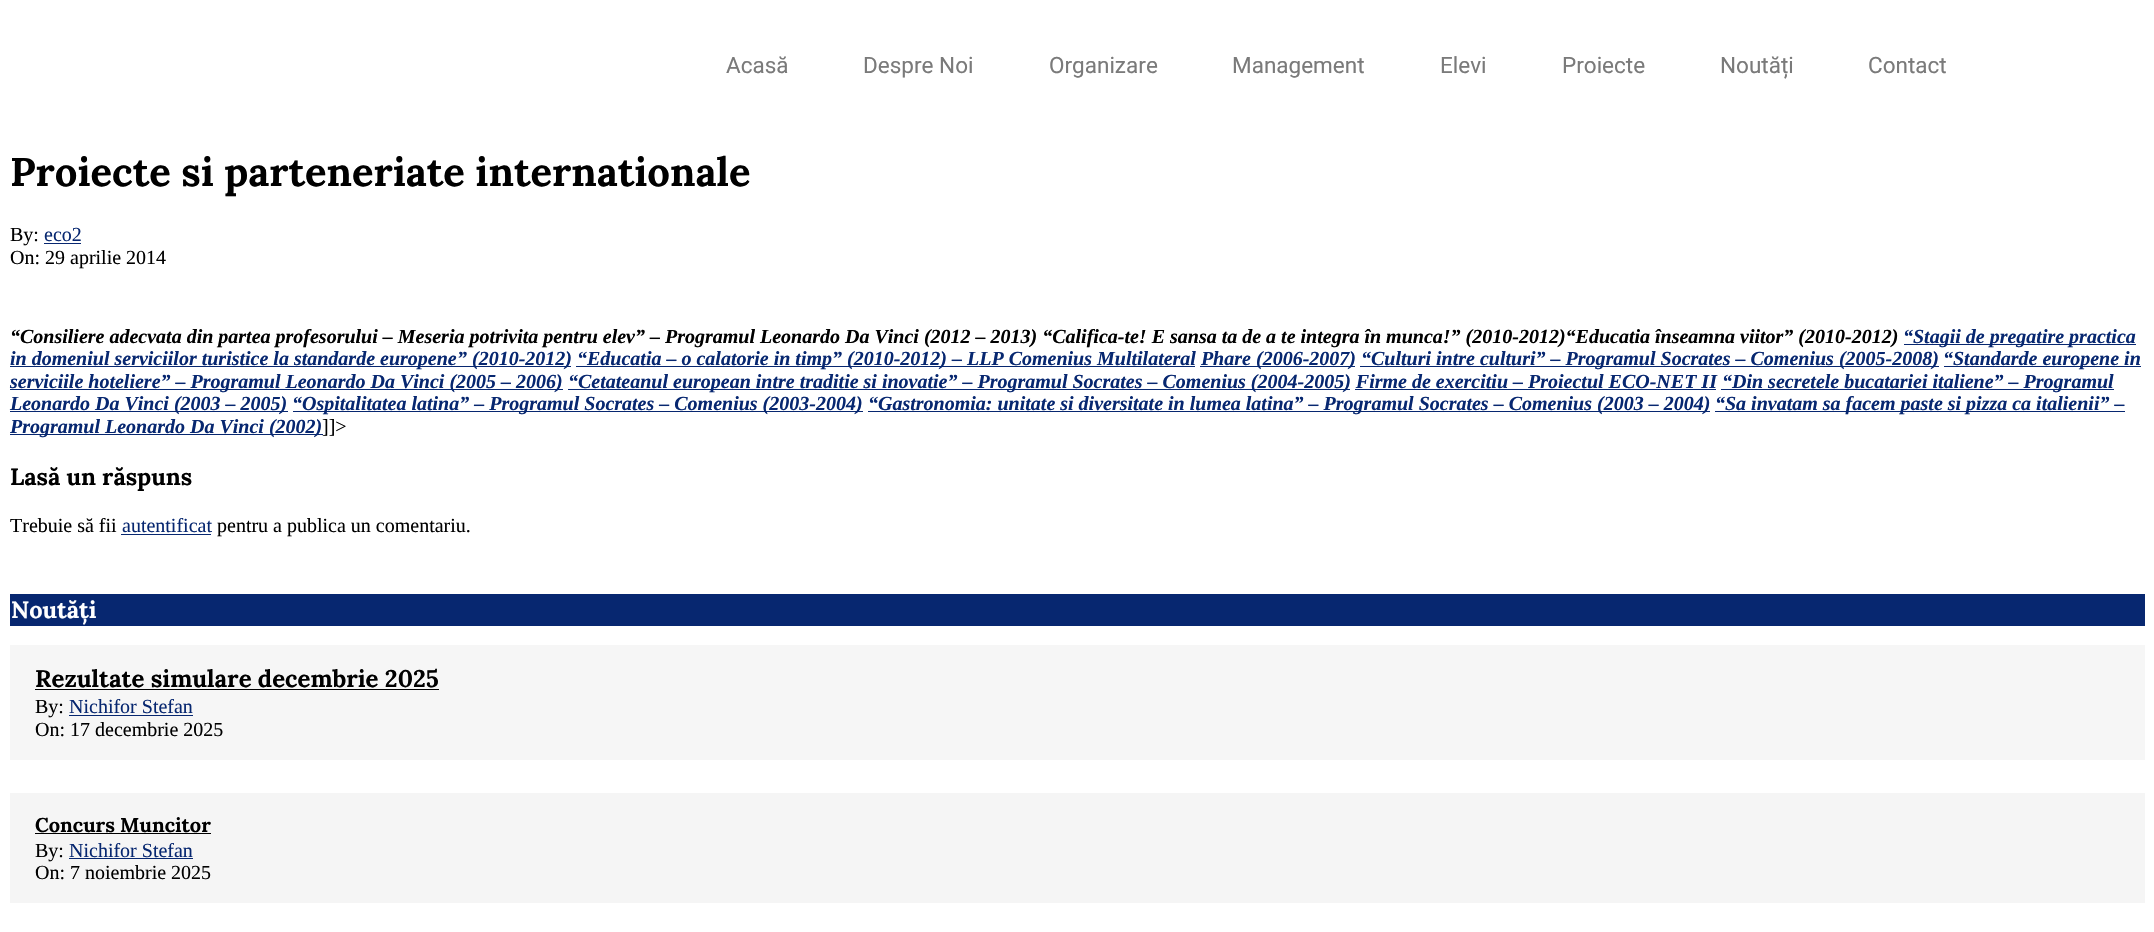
#include "include/core/SkBlurTypes.h"
#include "include/core/SkCanvas.h"
#include "include/core/SkData.h"
#include "include/core/SkFont.h"
#include "include/core/SkFontMgr.h"
#include "include/core/SkImage.h"
#include "include/core/SkMaskFilter.h"
#include "include/core/SkPaint.h"
#include "include/core/SkPathBuilder.h"
#include "include/core/SkTextBlob.h"
#include "include/effects/SkDashPathEffect.h"
#include "include/effects/SkGradientShader.h"
#include "include/utils/SkParsePath.h"

extern sk_sp<SkFontMgr> fontMgr;

void draw(SkCanvas* canvas) {
  SkPaint p;
  p.setAntiAlias(true);
  canvas->clear(SK_ColorWHITE);
  p.setColor(SkColorSetRGB(7, 39, 112));
  canvas->drawRect(SkRect::MakeLTRB(44, 243, 81, 244), p);
  canvas->drawRect(SkRect::MakeLTRB(1904, 344, 2136, 345), p);
  canvas->drawRect(SkRect::MakeLTRB(10, 366, 456, 367), p);
  canvas->drawRect(SkRect::MakeLTRB(456, 366, 571, 367), p);
  canvas->drawRect(SkRect::MakeLTRB(576, 366, 1195, 367), p);
  canvas->drawRect(SkRect::MakeLTRB(1200, 366, 1355, 367), p);
  canvas->drawRect(SkRect::MakeLTRB(1360, 366, 1939, 367), p);
  canvas->drawRect(SkRect::MakeLTRB(1944, 366, 2141, 367), p);
  canvas->drawRect(SkRect::MakeLTRB(10, 389, 563, 390), p);
  canvas->drawRect(SkRect::MakeLTRB(568, 389, 1350, 390), p);
  canvas->drawRect(SkRect::MakeLTRB(1721, 389, 2114, 390), p);
  canvas->drawRect(SkRect::MakeLTRB(1355, 389, 1716, 390), p);
  canvas->drawRect(SkRect::MakeLTRB(10, 411, 288, 412), p);
  canvas->drawRect(SkRect::MakeLTRB(293, 411, 863, 412), p);
  canvas->drawRect(SkRect::MakeLTRB(868, 411, 1710, 412), p);
  canvas->drawRect(SkRect::MakeLTRB(1715, 411, 2125, 412), p);
  canvas->drawRect(SkRect::MakeLTRB(10, 434, 323, 435), p);
  canvas->drawRect(SkRect::MakeLTRB(121, 534, 211, 535), p);
  canvas->drawRect(SkRect::MakeLTRB(10, 594, 2145, 626), p);
  p.setColor(SkColorSetRGB(246, 246, 246));
  canvas->drawRect(SkRect::MakeLTRB(10, 645, 2145, 760), p);
  p.setColor(SK_ColorBLACK);
  canvas->drawRect(SkRect::MakeLTRB(35, 689, 439, 690), p);
  p.setColor(SkColorSetRGB(7, 39, 112));
  canvas->drawRect(SkRect::MakeLTRB(69, 715, 193, 716), p);
  p.setColor(SkColorSetRGB(245, 245, 245));
  canvas->drawRect(SkRect::MakeLTRB(10, 793, 2145, 903), p);
  p.setColor(SK_ColorBLACK);
  canvas->drawRect(SkRect::MakeLTRB(35, 833, 211, 834), p);
  p.setColor(SkColorSetRGB(7, 39, 112));
  canvas->drawRect(SkRect::MakeLTRB(69, 858, 193, 859), p);
  SkFont font1(fontMgr->matchFamilyStyle("Roboto", SkFontStyle::Normal()), 22.5f);
  font1.setSubpixel(true);
  p.setColor(SkColorSetRGB(122, 122, 122));
  canvas->drawString("Acasă", 726, 73, font1, p);
  canvas->drawString("Despre Noi", 863, 73, font1, p);
  canvas->drawString("Organizare", 1049, 73, font1, p);
  canvas->drawString("Management", 1232, 73, font1, p);
  canvas->drawString("Elevi", 1440, 73, font1, p);
  canvas->drawString("Proiecte", 1562, 73, font1, p);
  canvas->drawString("Noutăți", 1720, 73, font1, p);
  canvas->drawString("Contact", 1868, 73, font1, p);
  SkFont font2(fontMgr->matchFamilyStyle("Lora", SkFontStyle::Bold()), 40);
  font2.setSubpixel(true);
  p.setColor(SK_ColorBLACK);
  canvas->drawString("Proiecte si parteneriate internationale", 10, 186, font2, p);
  SkFont font3(fontMgr->matchFamilyStyle("Liberation Serif", SkFontStyle::Normal()), 20);
  font3.setSubpixel(true);
  canvas->drawString("By:", 10, 241, font3, p);
  p.setColor(SkColorSetRGB(7, 39, 112));
  canvas->drawString("eco2", 44, 241, font3, p);
  p.setColor(SK_ColorBLACK);
  canvas->drawString("On: 29 aprilie 2014", 10, 264, font3, p);
  SkFont font4(fontMgr->matchFamilyStyle("Liberation Serif", SkFontStyle::BoldItalic()), 20);
  font4.setSubpixel(true);
  canvas->drawString("“Consiliere adecvata din partea profesorului – Meseria potrivita pentru elev” – Programul Leonardo Da Vinci (2012 – 2013) “Califica-te! E sansa ta de a te integra în munca!” (2010-2012)“Educatia înseamna viitor” (2010-2012)", 10, 343, font4, p);
  p.setColor(SkColorSetRGB(7, 39, 112));
  canvas->drawString("“Stagii de pregatire practica", 1903, 343, font4, p);
  canvas->drawString("in domeniul serviciilor turistice la standarde europene", 10, 365, font4, p);
  canvas->drawString("” (2010-2012)", 457, 365, font4, p);
  canvas->drawString("“Educatia – o calatorie in timp” (2010-2012) – LLP Comenius Multilateral Phare", 577, 365, font4, p);
  canvas->drawString("(2006-2007)", 1256, 365, font4, p);
  canvas->drawString("“Culturi intre culturi” – Programul Socrates – Comenius (2005-2008)", 1361, 365, font4, p);
  canvas->drawString("“Standarde europene in", 1943, 365, font4, p);
  canvas->drawString("serviciile hoteliere” – Programul Leonardo Da Vinci (2005 – 2006)", 10, 388, font4, p);
  canvas->drawString("“Cetateanul european intre traditie si inovatie” – Programul Socrates – Comenius (2004-2005) Firme de exercitiu – Proiectul ECO-NET II", 568, 388, font4, p);
  canvas->drawString("“Din secretele bucatariei italiene” – Programul", 1722, 388, font4, p);
  canvas->drawString("Leonardo Da Vinci (2003 – 2005)", 10, 410, font4, p);
  canvas->drawString("“Ospitalitatea latina” – Programul Socrates – Comenius (2003-2004)", 292, 410, font4, p);
  canvas->drawString("“Gastronomia: unitate si diversitate in lumea latina” – Programul Socrates – Comenius (2003 – 2004)", 868, 410, font4, p);
  canvas->drawString("“Sa invatam sa facem paste si pizza ca italienii” –", 1715, 410, font4, p);
  canvas->drawString("Programul Leonardo Da Vinci (2002)", 10, 433, font4, p);
  p.setColor(SK_ColorBLACK);
  canvas->drawString("]]>", 322, 433, font3, p);
  SkFont font5(fontMgr->matchFamilyStyle("Lora", SkFontStyle::Bold()), 23.5f);
  font5.setSubpixel(true);
  canvas->drawString("Lasă un răspuns", 10, 485, font5, p);
  canvas->drawString("Trebuie să fii", 10, 532, font3, p);
  p.setColor(SkColorSetRGB(7, 39, 112));
  canvas->drawString("autentificat", 122, 532, font3, p);
  p.setColor(SK_ColorBLACK);
  canvas->drawString("pentru a publica un comentariu.", 217, 532, font3, p);
  p.setColor(SK_ColorWHITE);
  canvas->drawString("Noutăți", 11, 618, font5, p);
  SkFont font6(fontMgr->matchFamilyStyle("Lora", SkFontStyle::Bold()), 24);
  font6.setSubpixel(true);
  p.setColor(SK_ColorBLACK);
  canvas->drawString("Rezultate simulare decembrie 2025", 35, 687, font6, p);
  canvas->drawString("By:", 35, 713, font3, p);
  p.setColor(SkColorSetRGB(7, 39, 112));
  canvas->drawString("Nichifor Stefan", 69, 713, font3, p);
  p.setColor(SK_ColorBLACK);
  canvas->drawString("On: 17 decembrie 2025", 35, 736, font3, p);
  SkFont font7(fontMgr->matchFamilyStyle("Lora", SkFontStyle::Bold()), 20);
  font7.setSubpixel(true);
  canvas->drawString("Concurs Muncitor", 35, 832, font7, p);
  canvas->drawString("By:", 35, 857, font3, p);
  p.setColor(SkColorSetRGB(7, 39, 112));
  canvas->drawString("Nichifor Stefan", 69, 857, font3, p);
  p.setColor(SK_ColorBLACK);
  canvas->drawString("On: 7 noiembrie 2025", 35, 879, font3, p);
}
